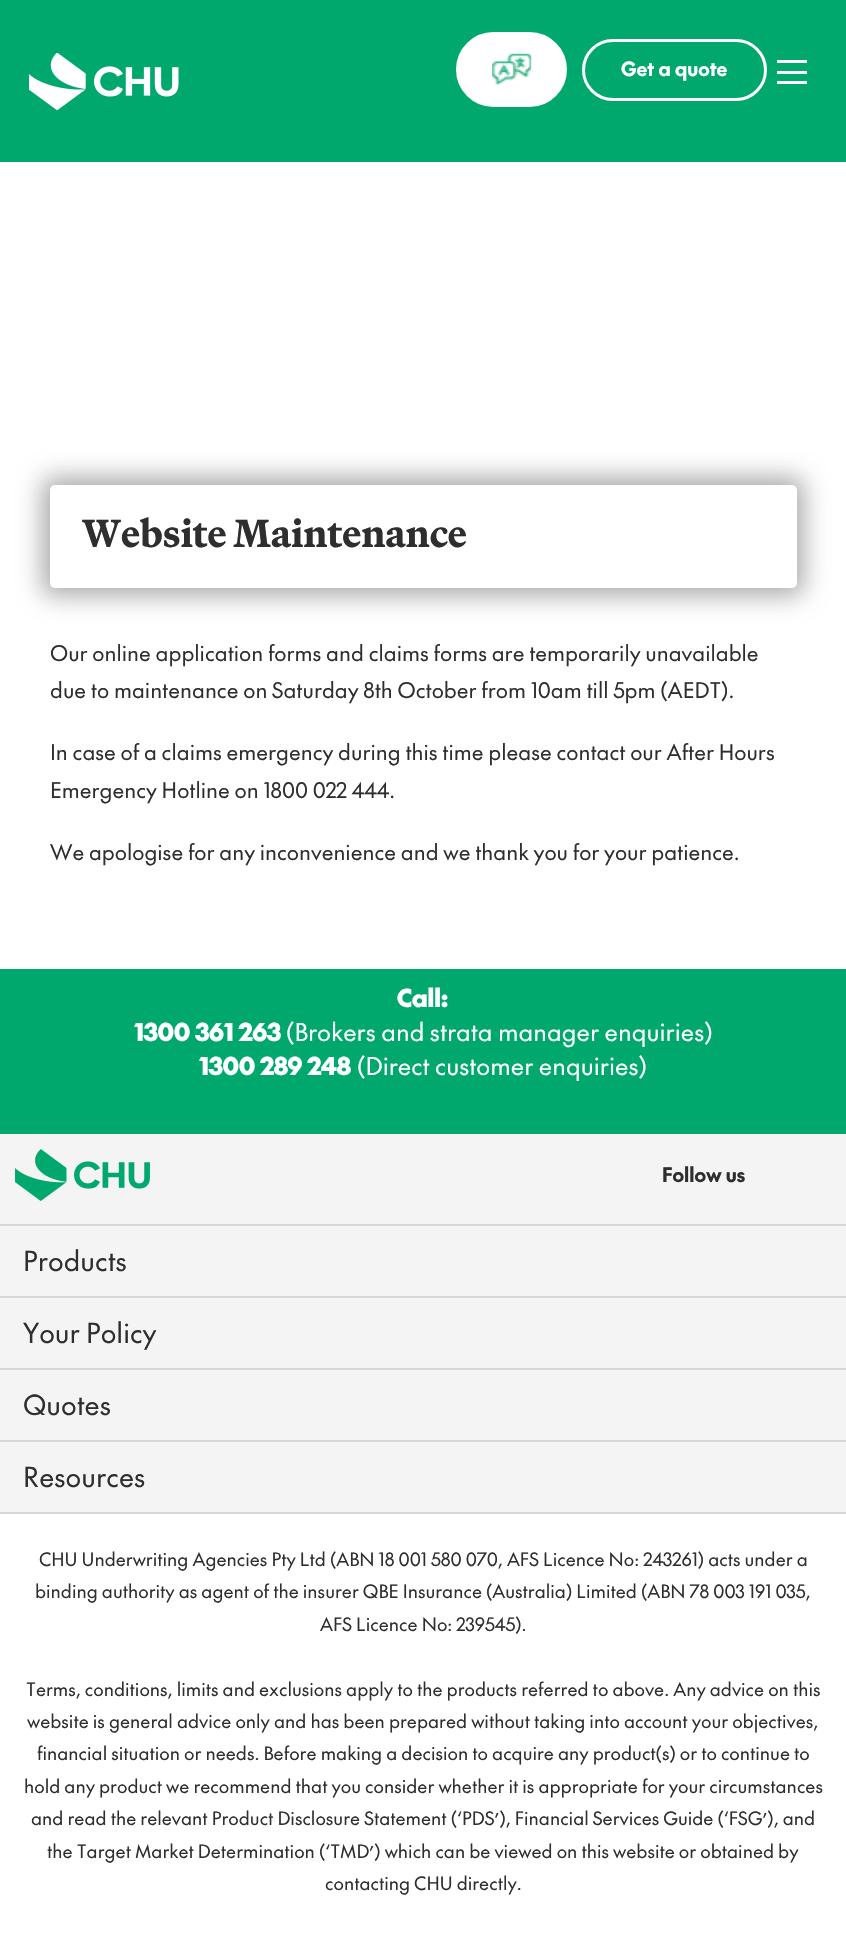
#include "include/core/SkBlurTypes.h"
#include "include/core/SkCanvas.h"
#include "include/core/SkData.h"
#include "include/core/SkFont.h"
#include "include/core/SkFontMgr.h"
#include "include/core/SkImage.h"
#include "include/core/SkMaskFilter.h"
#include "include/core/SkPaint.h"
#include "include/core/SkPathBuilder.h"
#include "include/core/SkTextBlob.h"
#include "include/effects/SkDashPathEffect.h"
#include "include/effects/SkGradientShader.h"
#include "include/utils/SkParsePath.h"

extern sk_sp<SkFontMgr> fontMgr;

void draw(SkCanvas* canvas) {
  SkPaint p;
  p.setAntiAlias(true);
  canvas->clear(SK_ColorWHITE);
  p.setColor(SkColorSetRGB(0, 168, 110));
  canvas->drawRect(SkRect::MakeLTRB(0, 0, 846, 162), p);
  canvas->drawImageRect(SkImages::DeferredFromEncodedData(SkData::MakeFromFileName("images/1.png")), SkRect::MakeLTRB(29, 53, 179, 110), SkSamplingOptions());
  p.setColor(SK_ColorWHITE);
  canvas->drawRoundRect(SkRect::MakeLTRB(454.5f, 30.5f, 568.5f, 108.5f), 39, 39, p);
  p.setStyle(SkPaint::kStroke_Style);
  p.setStrokeWidth(3);
  p.setColor(SkColorSetRGB(0, 168, 110));
  canvas->drawRoundRect(SkRect::MakeLTRB(454.5f, 30.5f, 568.5f, 108.5f), 39, 39, p);
  canvas->drawImageRect(SkImages::DeferredFromEncodedData(SkData::MakeFromFileName("images/2.png")), SkRect::MakeLTRB(492, 52, 532, 85), SkSamplingOptions());
  p.setColor(SK_ColorWHITE);
  canvas->drawRoundRect(SkRect::MakeLTRB(583.5f, 40.5f, 765.5f, 99.5f), 29.5f, 29.5f, p);
  p.setStyle(SkPaint::kFill_Style);
  canvas->drawRect(SkRect::MakeLTRB(777, 60, 807, 63), p);
  canvas->drawRect(SkRect::MakeLTRB(777, 71, 807, 74), p);
  canvas->drawRect(SkRect::MakeLTRB(777, 81, 807, 84), p);
  p.setColor(SkColorSetARGB(84, 0, 0, 0));
  p.setMaskFilter(SkMaskFilter::MakeBlur(kNormal_SkBlurStyle, 12));
  canvas->drawRoundRect(SkRect::MakeLTRB(42, 477, 804, 596), 12, 12, p);
  p.setMaskFilter(nullptr);
  p.setColor(SK_ColorWHITE);
  canvas->drawRoundRect(SkRect::MakeLTRB(50, 485, 797, 588), 5, 5, p);
  p.setColor(SkColorSetRGB(244, 244, 244));
  canvas->drawRect(SkRect::MakeLTRB(0, 1134, 846, 1512), p);
  p.setColor(SkColorSetRGB(0, 168, 110));
  canvas->drawRect(SkRect::MakeLTRB(0, 969, 846, 1134), p);
  canvas->drawImageRect(SkImages::DeferredFromEncodedData(SkData::MakeFromFileName("images/3.png")), SkRect::MakeLTRB(15, 1149, 150, 1201), SkSamplingOptions());
  p.setColor(SkColorSetRGB(215, 215, 215));
  canvas->drawRect(SkRect::MakeLTRB(0, 1224, 846, 1226), p);
  canvas->drawRect(SkRect::MakeLTRB(0, 1296, 846, 1298), p);
  canvas->drawRect(SkRect::MakeLTRB(0, 1368, 846, 1370), p);
  canvas->drawRect(SkRect::MakeLTRB(0, 1440, 846, 1442), p);
  canvas->drawRect(SkRect::MakeLTRB(0, 1512, 846, 1514), p);
  SkFont font1(fontMgr->matchFamilyStyle("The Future", SkFontStyle::Bold()), 19.25f);
  font1.setSubpixel(true);
  p.setColor(SK_ColorWHITE);
  canvas->drawString("Get a quote", 621, 76, font1, p);
  SkFont font2(fontMgr->matchFamilyStyle("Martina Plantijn", SkFontStyle(900, SkFontStyle::kNormal_Width, SkFontStyle::kUpright_Slant)), 39);
  font2.setSubpixel(true);
  p.setColor(SkColorSetRGB(46, 46, 46));
  canvas->drawString("Website Maintenance", 82, 547, font2, p);
  SkFont font3(fontMgr->matchFamilyStyle("The Future", SkFontStyle::Normal()), 21);
  font3.setSubpixel(true);
  canvas->drawString("Our online application forms and claims forms are temporarily unavailable", 50, 661, font3, p);
  canvas->drawString("due to maintenance on Saturday 8th October from 10am till 5pm (AEDT).", 50, 698, font3, p);
  canvas->drawString("In case of a claims emergency during this time please contact our After Hours", 50, 760, font3, p);
  canvas->drawString("Emergency Hotline on 1800 022 444.", 50, 798, font3, p);
  canvas->drawString("We apologise for any inconvenience and we thank you for your patience.", 50, 860, font3, p);
  SkFont font4(fontMgr->matchFamilyStyle("The Future", SkFontStyle(900, SkFontStyle::kNormal_Width, SkFontStyle::kUpright_Slant)), 24);
  font4.setSubpixel(true);
  p.setColor(SK_ColorWHITE);
  canvas->drawString("Call:", 397, 1007, font4, p);
  canvas->drawString("1300 361 263", 134, 1041, font4, p);
  SkFont font5(fontMgr->matchFamilyStyle("The Future", SkFontStyle::Normal()), 24);
  font5.setSubpixel(true);
  canvas->drawString("(Brokers and strata manager enquiries)", 286, 1041, font5, p);
  canvas->drawString("1300 289 248", 199, 1075, font4, p);
  canvas->drawString("(Direct customer enquiries)", 357, 1075, font5, p);
  SkFont font6(fontMgr->matchFamilyStyle("The Future", SkFontStyle::Bold()), 19.5f);
  font6.setSubpixel(true);
  p.setColor(SkColorSetRGB(46, 46, 46));
  canvas->drawString("Follow us", 662, 1182, font6, p);
  SkFont font7(fontMgr->matchFamilyStyle("The Future", SkFontStyle::Normal()), 27);
  font7.setSubpixel(true);
  canvas->drawString("Products", 23, 1271, font7, p);
  canvas->drawString("Your Policy", 23, 1343, font7, p);
  canvas->drawString("Quotes", 23, 1415, font7, p);
  canvas->drawString("Resources", 23, 1487, font7, p);
  SkFont font8(fontMgr->matchFamilyStyle("The Future", SkFontStyle::Normal()), 18);
  font8.setSubpixel(true);
  canvas->drawString("CHU Underwriting Agencies Pty Ltd (ABN 18 001 580 070, AFS Licence No: 243261) acts under a", 39, 1566, font8, p);
  canvas->drawString("binding authority as agent of the insurer QBE Insurance (Australia) Limited (ABN 78 003 191 035,", 35, 1598, font8, p);
  canvas->drawString("AFS Licence No: 239545).", 320, 1631, font8, p);
  canvas->drawString("Terms, conditions, limits and exclusions apply to the products referred to above. Any advice on this", 26, 1696, font8, p);
  canvas->drawString("website is general advice only and has been prepared without taking into account your objectives,", 27, 1728, font8, p);
  canvas->drawString("financial situation or needs. Before making a decision to acquire any product(s) or to continue to", 37, 1760, font8, p);
  canvas->drawString("hold any product we recommend that you consider whether it is appropriate for your circumstances", 24, 1793, font8, p);
  canvas->drawString("and read the relevant Product Disclosure Statement (‘PDS’), Financial Services Guide (‘FSG’), and", 31, 1825, font8, p);
  canvas->drawString("the Target Market Determination (‘TMD’) which can be viewed on this website or obtained by", 47, 1858, font8, p);
  canvas->drawString("contacting CHU directly.", 325, 1890, font8, p);
}
